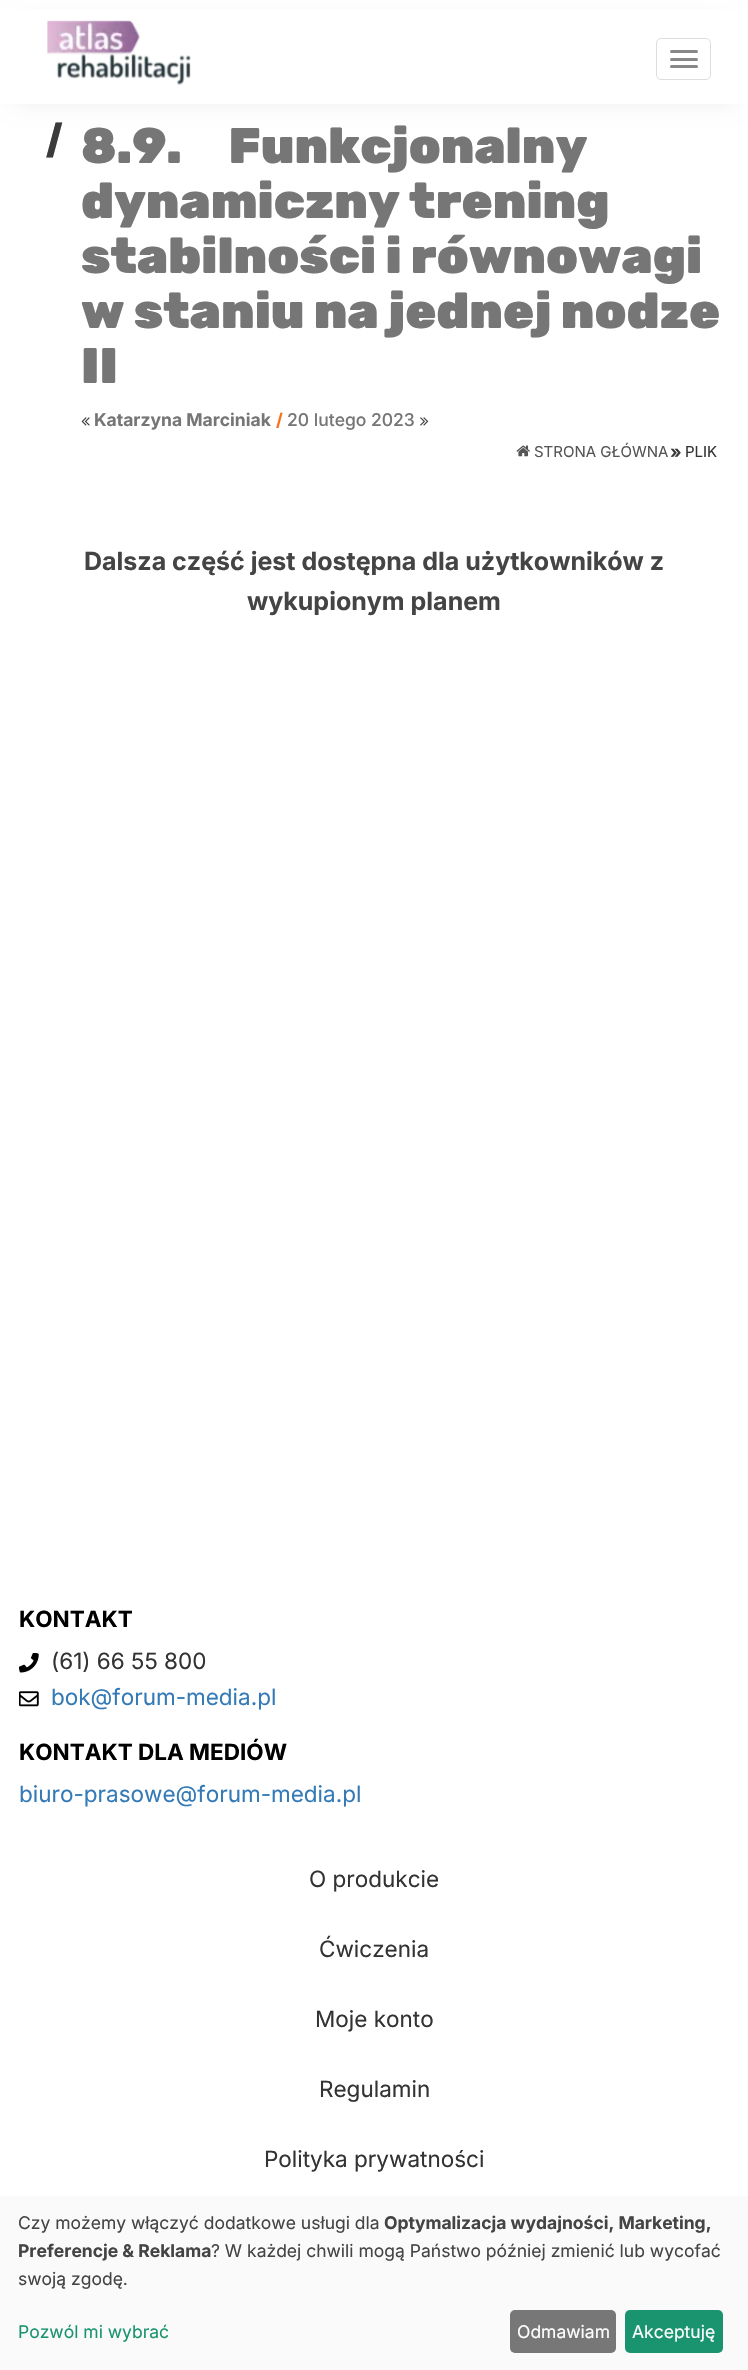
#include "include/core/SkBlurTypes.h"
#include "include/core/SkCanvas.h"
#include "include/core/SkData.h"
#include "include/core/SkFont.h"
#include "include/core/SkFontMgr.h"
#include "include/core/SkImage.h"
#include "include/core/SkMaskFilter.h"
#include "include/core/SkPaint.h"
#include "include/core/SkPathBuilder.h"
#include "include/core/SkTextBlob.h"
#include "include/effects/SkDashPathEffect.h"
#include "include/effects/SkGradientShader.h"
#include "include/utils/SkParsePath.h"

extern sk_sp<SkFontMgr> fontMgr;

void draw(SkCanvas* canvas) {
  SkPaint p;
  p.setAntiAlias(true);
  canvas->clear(SK_ColorWHITE);
  p.setColor(SkColorSetARGB(26, 0, 0, 0));
  p.setMaskFilter(SkMaskFilter::MakeBlur(kNormal_SkBlurStyle, 12.5f));
  canvas->drawRect(SkRect::MakeLTRB(15, 25, 734, 99), p);
  p.setMaskFilter(nullptr);
  p.setColor(SK_ColorWHITE);
  canvas->drawRect(SkRect::MakeLTRB(0, 9, 748, 104), p);
  canvas->drawImageRect(SkImages::DeferredFromEncodedData(SkData::MakeFromFileName("images/1.png")), SkRect::MakeLTRB(47, 20, 191, 86), SkSamplingOptions());
  p.setStyle(SkPaint::kStroke_Style);
  p.setStrokeWidth(1);
  p.setColor(SkColorSetRGB(221, 221, 221));
  canvas->drawRoundRect(SkRect::MakeLTRB(656.5f, 38.5f, 710.5f, 79.5f), 4.5f, 4.5f, p);
  p.setStyle(SkPaint::kFill_Style);
  p.setColor(SkColorSetRGB(136, 136, 136));
  canvas->drawRoundRect(SkRect::MakeLTRB(670, 50, 698, 53), 1.5f, 1.5f, p);
  canvas->drawRoundRect(SkRect::MakeLTRB(670, 58, 698, 61), 1.5f, 1.5f, p);
  canvas->drawRoundRect(SkRect::MakeLTRB(670, 65, 698, 68), 1.5f, 1.5f, p);
  canvas->drawImageRect(SkImages::DeferredFromEncodedData(SkData::MakeFromFileName("images/2.png")), SkRect::MakeLTRB(81, 417, 90, 426), SkSamplingOptions());
  canvas->drawImageRect(SkImages::DeferredFromEncodedData(SkData::MakeFromFileName("images/3.png")), SkRect::MakeLTRB(420, 417, 429, 426), SkSamplingOptions());
  canvas->drawImageRect(SkImages::DeferredFromEncodedData(SkData::MakeFromFileName("images/4.png")), SkRect::MakeLTRB(516, 445, 530, 457), SkSamplingOptions());
  canvas->drawImageRect(SkImages::DeferredFromEncodedData(SkData::MakeFromFileName("images/5.png")), SkRect::MakeLTRB(19, 1653, 39, 1673), SkSamplingOptions());
  canvas->drawImageRect(SkImages::DeferredFromEncodedData(SkData::MakeFromFileName("images/6.png")), SkRect::MakeLTRB(19, 1691, 39, 1707), SkSamplingOptions());
  p.setColor(SkColorSetRGB(250, 250, 250));
  canvas->drawRect(SkRect::MakeLTRB(0, 2196, 748, 2370), p);
  p.setColor(SkColorSetRGB(119, 119, 119));
  canvas->drawRoundRect(SkRect::MakeLTRB(510, 2310, 616, 2353), 5, 5, p);
  p.setColor(SkColorSetRGB(26, 147, 111));
  canvas->drawRoundRect(SkRect::MakeLTRB(625, 2310, 723, 2353), 5, 5, p);
  SkFont font1(fontMgr->matchFamilyStyle("Inter", SkFontStyle(900, SkFontStyle::kNormal_Width, SkFontStyle::kUpright_Slant)), 40);
  font1.setSubpixel(true);
  p.setColor(SkColorSetRGB(59, 59, 59));
  canvas->drawString("/", 46, 153, font1, p);
  SkFont font2(fontMgr->matchFamilyStyle("Rubik", SkFontStyle(900, SkFontStyle::kNormal_Width, SkFontStyle::kUpright_Slant)), 50);
  font2.setSubpixel(true);
  p.setColor(SkColorSetRGB(118, 118, 118));
  canvas->drawString("8.9.     Funkcjonalny", 81, 163, font2, p);
  canvas->drawString("dynamiczny trening", 81, 218, font2, p);
  canvas->drawString("stabilności i równowagi", 81, 273, font2, p);
  canvas->drawString("w staniu na jednej nodze", 81, 328, font2, p);
  canvas->drawString("II", 81, 383, font2, p);
  SkFont font3(fontMgr->matchFamilyStyle("Inter", SkFontStyle::Bold()), 17.5f);
  font3.setSubpixel(true);
  canvas->drawString("Katarzyna Marciniak", 94, 426, font3, p);
  p.setColor(SkColorSetRGB(248, 114, 29));
  canvas->drawString("/", 276, 426, font3, p);
  SkFont font4(fontMgr->matchFamilyStyle("Inter", SkFontStyle(500, SkFontStyle::kNormal_Width, SkFontStyle::kUpright_Slant)), 17.5f);
  font4.setSubpixel(true);
  p.setColor(SkColorSetRGB(118, 118, 118));
  canvas->drawString("20 lutego 2023", 287, 426, font4, p);
  SkFont font5(fontMgr->matchFamilyStyle("Inter", SkFontStyle::Normal()), 15);
  font5.setSubpixel(true);
  p.setColor(SkColorSetRGB(85, 85, 85));
  canvas->drawString("STRONA GŁÓWNA", 534, 457, font5, p);
  p.setColor(SkColorSetRGB(59, 59, 59));
  canvas->drawString("»", 670, 458, font3, p);
  p.setColor(SkColorSetRGB(51, 51, 51));
  canvas->drawString("PLIK", 685, 457, font5, p);
  SkFont font6(fontMgr->matchFamilyStyle("Inter", SkFontStyle::Bold()), 25);
  font6.setSubpixel(true);
  p.setColor(SkColorSetRGB(68, 68, 68));
  canvas->drawString("Dalsza część jest dostępna dla użytkowników z", 84, 570, font6, p);
  canvas->drawString("wykupionym planem", 247, 610, font6, p);
  SkFont font7(fontMgr->matchFamilyStyle("Inter", SkFontStyle::Bold()), 22.5f);
  font7.setSubpixel(true);
  p.setColor(SK_ColorBLACK);
  canvas->drawString("KONTAKT", 19, 1627, font7, p);
  SkFont font8(fontMgr->matchFamilyStyle("Inter", SkFontStyle::Normal()), 22.5f);
  font8.setSubpixel(true);
  p.setColor(SkColorSetRGB(51, 51, 51));
  canvas->drawString("(61) 66 55 800", 51, 1669, font8, p);
  p.setColor(SkColorSetRGB(51, 122, 183));
  canvas->drawString("bok@forum-media.pl", 51, 1705, font8, p);
  p.setColor(SK_ColorBLACK);
  canvas->drawString("KONTAKT DLA MEDIÓW", 19, 1760, font7, p);
  p.setColor(SkColorSetRGB(51, 122, 183));
  canvas->drawString("biuro-prasowe@forum-media.pl", 19, 1802, font8, p);
  p.setColor(SkColorSetRGB(51, 51, 51));
  canvas->drawString("O produkcie", 309, 1887, font8, p);
  canvas->drawString("Ćwiczenia", 319, 1957, font8, p);
  canvas->drawString("Moje konto", 315, 2027, font8, p);
  canvas->drawString("Regulamin", 319, 2097, font8, p);
  canvas->drawString("Polityka prywatności", 264, 2167, font8, p);
  SkFont font9(fontMgr->matchFamilyStyle("Inter", SkFontStyle::Normal()), 17.5f);
  font9.setSubpixel(true);
  p.setColor(SkColorSetRGB(68, 68, 68));
  canvas->drawString("Czy możemy włączyć dodatkowe usługi dla", 18, 2229, font9, p);
  canvas->drawString("Optymalizacja wydajności, Marketing,", 384, 2229, font3, p);
  canvas->drawString("Preferencje & Reklama", 18, 2257, font3, p);
  canvas->drawString("? W każdej chwili mogą Państwo później zmienić lub wycofać", 211, 2257, font9, p);
  canvas->drawString("swoją zgodę.", 18, 2285, font9, p);
  p.setColor(SkColorSetRGB(26, 147, 111));
  canvas->drawString("Pozwól mi wybrać", 18, 2338, font9, p);
  p.setColor(SK_ColorWHITE);
  canvas->drawString("Odmawiam", 517, 2338, font9, p);
  canvas->drawString("Akceptuję", 632, 2338, font9, p);
}
